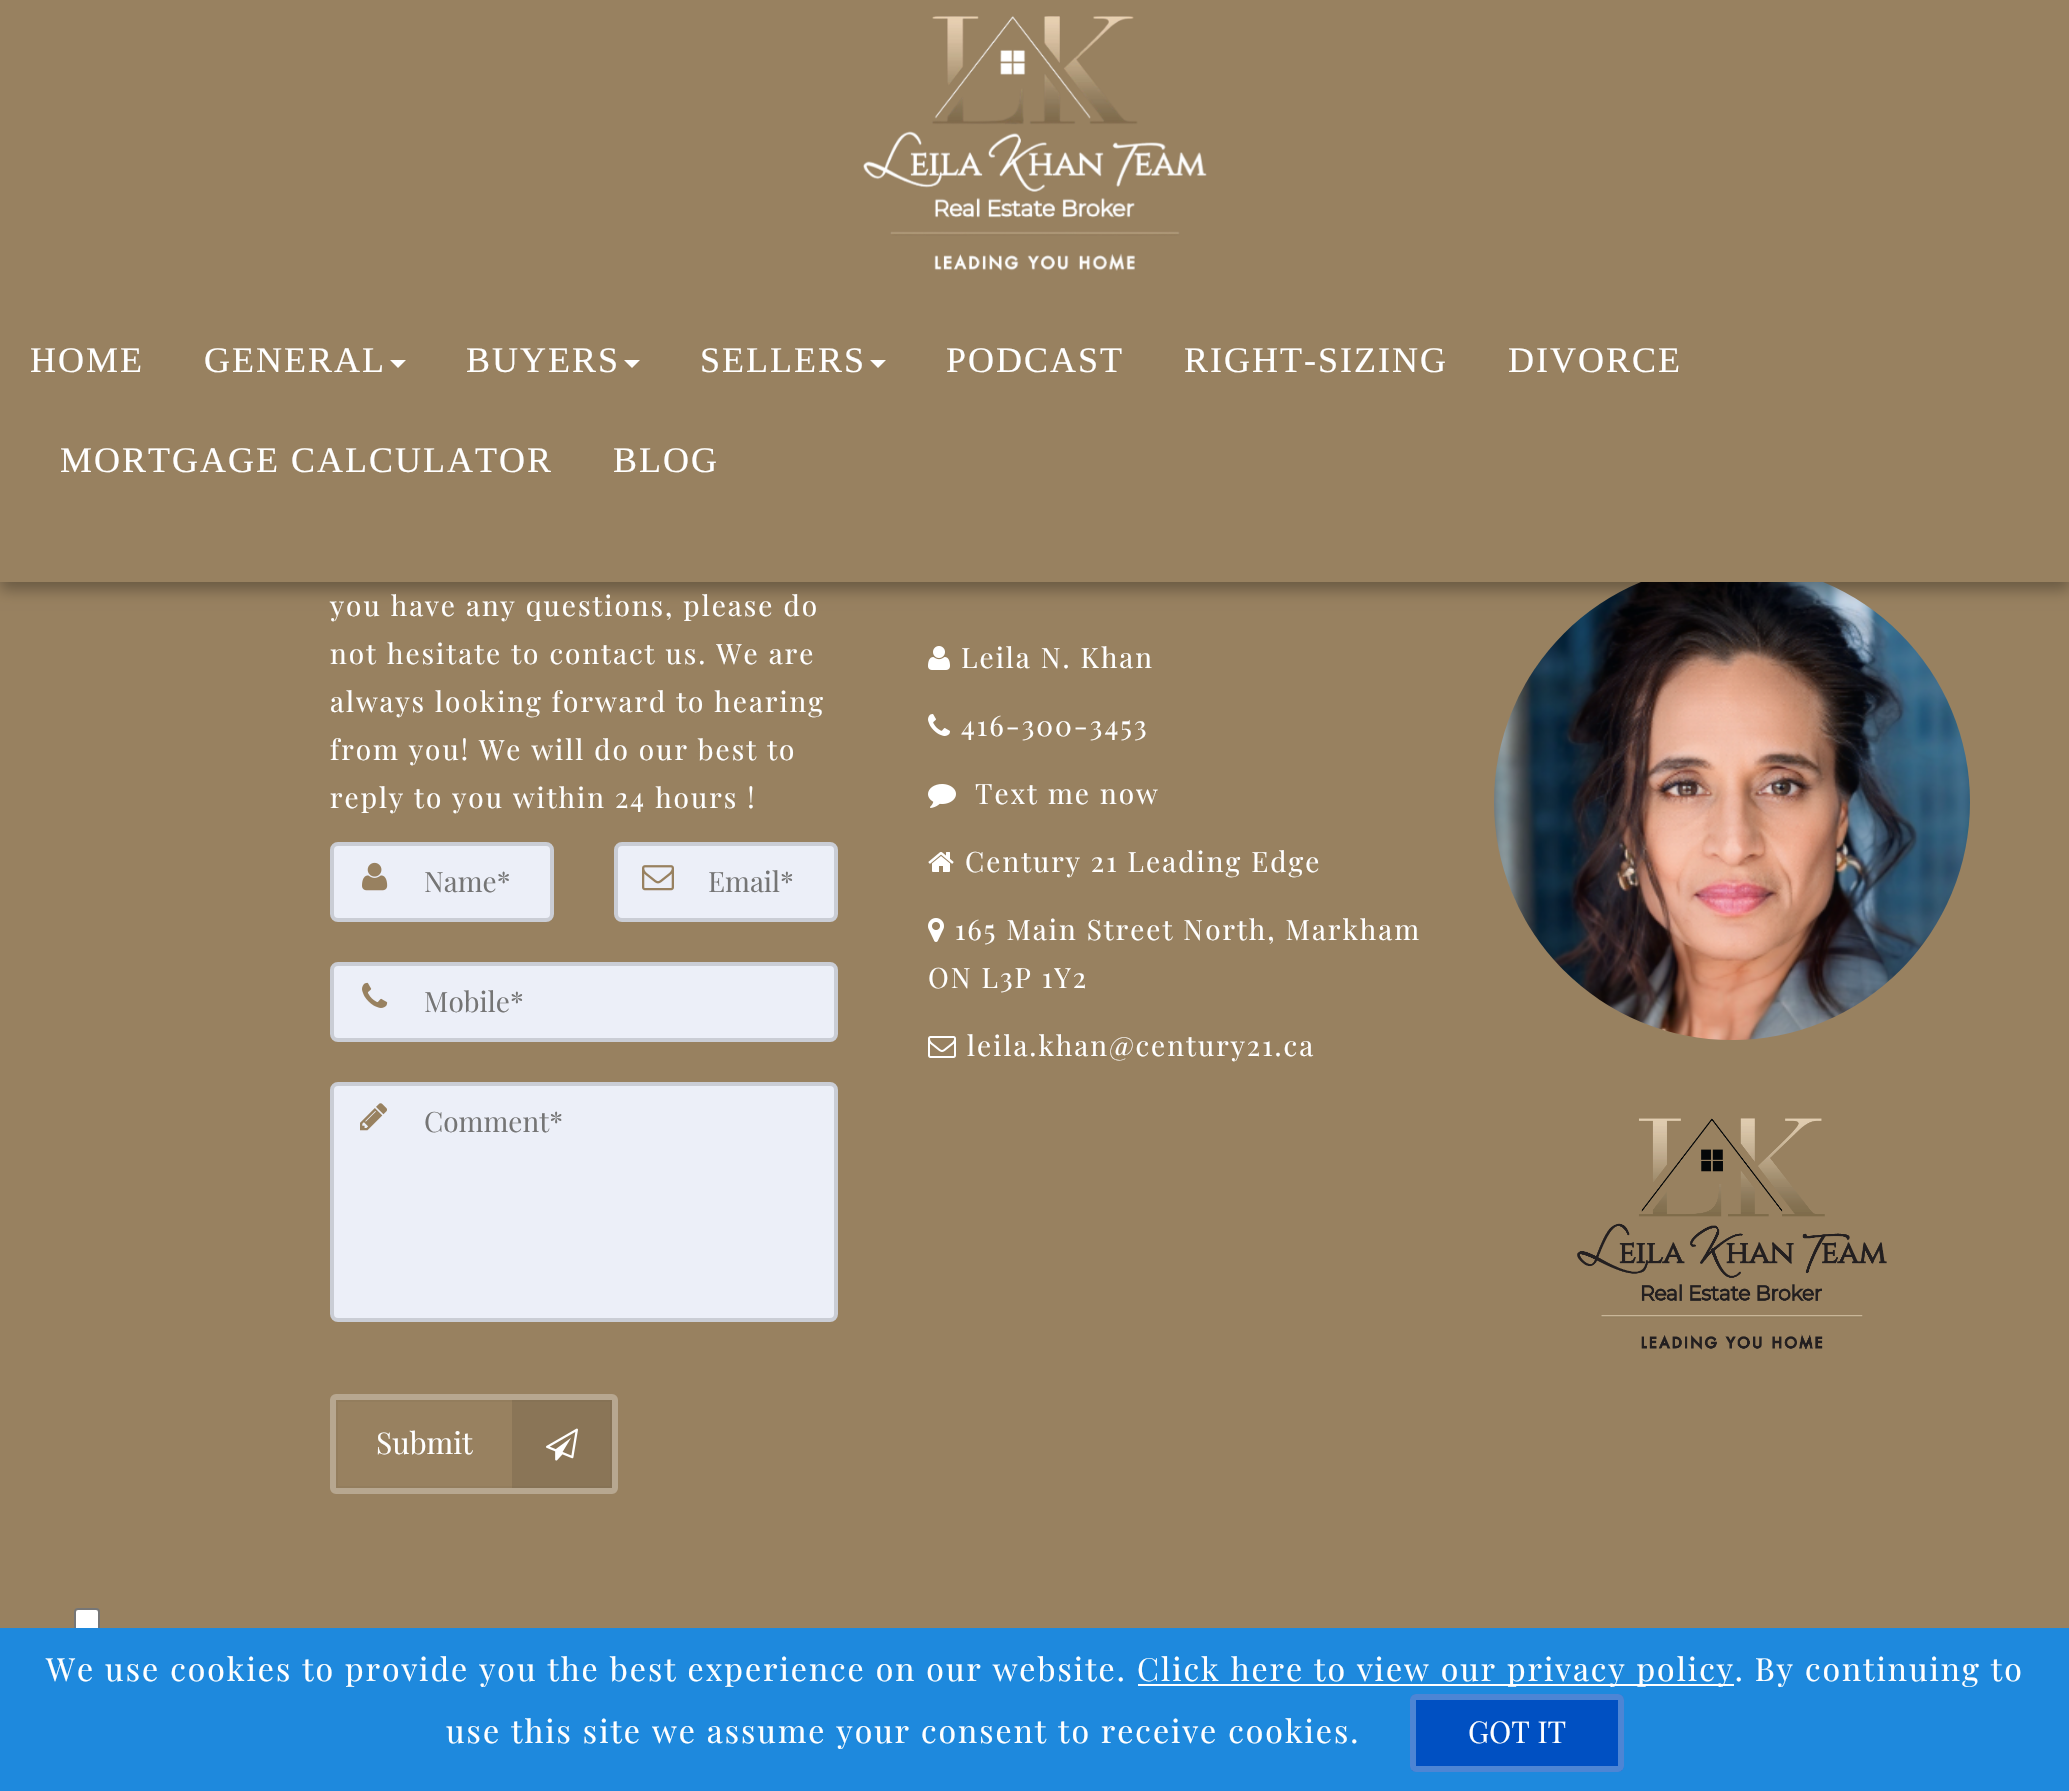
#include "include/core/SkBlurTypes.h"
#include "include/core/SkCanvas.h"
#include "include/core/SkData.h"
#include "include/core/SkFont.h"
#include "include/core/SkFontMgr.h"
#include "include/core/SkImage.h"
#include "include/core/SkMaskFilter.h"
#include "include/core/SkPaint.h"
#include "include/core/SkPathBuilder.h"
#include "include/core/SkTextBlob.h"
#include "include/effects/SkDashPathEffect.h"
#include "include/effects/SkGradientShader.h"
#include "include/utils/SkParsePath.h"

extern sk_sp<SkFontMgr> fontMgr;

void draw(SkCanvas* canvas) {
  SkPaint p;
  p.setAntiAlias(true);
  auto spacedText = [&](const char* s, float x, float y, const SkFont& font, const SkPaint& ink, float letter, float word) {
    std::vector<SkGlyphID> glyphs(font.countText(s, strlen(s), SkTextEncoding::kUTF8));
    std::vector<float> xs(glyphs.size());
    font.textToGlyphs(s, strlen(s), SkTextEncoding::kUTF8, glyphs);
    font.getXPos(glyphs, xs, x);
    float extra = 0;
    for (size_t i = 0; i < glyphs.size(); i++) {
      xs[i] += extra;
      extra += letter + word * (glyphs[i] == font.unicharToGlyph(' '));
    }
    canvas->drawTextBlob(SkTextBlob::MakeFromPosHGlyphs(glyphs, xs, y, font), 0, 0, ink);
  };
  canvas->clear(SkColorSetRGB(152, 129, 96));
  canvas->drawImageRect(SkImages::DeferredFromEncodedData(SkData::MakeFromFileName("images/13.png")), SkRect::MakeLTRB(1494, 582, 1970, 1040), SkSamplingOptions());
  p.setColor(SkColorSetARGB(77, 0, 0, 0));
  p.setMaskFilter(SkMaskFilter::MakeBlur(kNormal_SkBlurStyle, 7));
  canvas->drawRect(SkRect::MakeLTRB(0, 8, 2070, 590), p);
  p.setMaskFilter(nullptr);
  p.setColor(SkColorSetRGB(152, 129, 96));
  canvas->drawRect(SkRect::MakeLTRB(0, 0, 2069, 582), p);
  canvas->drawImageRect(SkImages::DeferredFromEncodedData(SkData::MakeFromFileName("images/1.png")), SkRect::MakeLTRB(863, 16, 1207, 271), SkSamplingOptions());
  p.setColor(SK_ColorWHITE);
  canvas->drawPath(SkPathBuilder().moveTo(390, 360).lineTo(406, 360).lineTo(398, 368).close().detach(), p);
  canvas->drawPath(SkPathBuilder().moveTo(624, 360).lineTo(640, 360).lineTo(632, 368).close().detach(), p);
  canvas->drawPath(SkPathBuilder().moveTo(870, 360).lineTo(886, 360).lineTo(878, 368).close().detach(), p);
  p.setColor(SkColorSetRGB(236, 239, 248));
  canvas->drawRoundRect(SkRect::MakeLTRB(332, 844, 552, 920), 6, 6, p);
  p.setStyle(SkPaint::kStroke_Style);
  p.setStrokeWidth(4);
  p.setColor(SkColorSetRGB(202, 205, 213));
  canvas->drawRoundRect(SkRect::MakeLTRB(332, 844, 552, 920), 6, 6, p);
  canvas->drawImageRect(SkImages::DeferredFromEncodedData(SkData::MakeFromFileName("images/2.png")), SkRect::MakeLTRB(362, 862, 388, 891), SkSamplingOptions());
  p.setStyle(SkPaint::kFill_Style);
  p.setColor(SkColorSetRGB(236, 239, 248));
  canvas->drawRoundRect(SkRect::MakeLTRB(616, 844, 836, 920), 6, 6, p);
  p.setStyle(SkPaint::kStroke_Style);
  p.setColor(SkColorSetRGB(202, 205, 213));
  canvas->drawRoundRect(SkRect::MakeLTRB(616, 844, 836, 920), 6, 6, p);
  canvas->drawImageRect(SkImages::DeferredFromEncodedData(SkData::MakeFromFileName("images/3.png")), SkRect::MakeLTRB(642, 865, 674, 891), SkSamplingOptions());
  p.setStyle(SkPaint::kFill_Style);
  p.setColor(SkColorSetRGB(236, 239, 248));
  canvas->drawRoundRect(SkRect::MakeLTRB(332, 964, 836, 1040), 6, 6, p);
  p.setStyle(SkPaint::kStroke_Style);
  p.setColor(SkColorSetRGB(202, 205, 213));
  canvas->drawRoundRect(SkRect::MakeLTRB(332, 964, 836, 1040), 6, 6, p);
  canvas->drawImageRect(SkImages::DeferredFromEncodedData(SkData::MakeFromFileName("images/4.png")), SkRect::MakeLTRB(362, 982, 388, 1008), SkSamplingOptions());
  p.setStyle(SkPaint::kFill_Style);
  p.setColor(SkColorSetRGB(236, 239, 248));
  canvas->drawRoundRect(SkRect::MakeLTRB(332, 1084, 836, 1320), 6, 6, p);
  p.setStyle(SkPaint::kStroke_Style);
  p.setColor(SkColorSetRGB(202, 205, 213));
  canvas->drawRoundRect(SkRect::MakeLTRB(332, 1084, 836, 1320), 6, 6, p);
  canvas->drawImageRect(SkImages::DeferredFromEncodedData(SkData::MakeFromFileName("images/5.png")), SkRect::MakeLTRB(360, 1103, 387, 1131), SkSamplingOptions());
  p.setStrokeWidth(2);
  p.setColor(SkColorSetRGB(147, 125, 93));
  canvas->drawRect(SkRect::MakeLTRB(337, 1401, 611, 1487), p);
  p.setStrokeWidth(6);
  p.setColor(SkColorSetRGB(183, 167, 144));
  canvas->drawRoundRect(SkRect::MakeLTRB(333, 1397, 615, 1491), 3, 3, p);
  p.setStyle(SkPaint::kFill_Style);
  p.setColor(SkColorSetARGB(23, 0, 0, 0));
  canvas->drawRect(SkRect::MakeLTRB(512, 1400, 612, 1488), p);
  canvas->drawImageRect(SkImages::DeferredFromEncodedData(SkData::MakeFromFileName("images/6.png")), SkRect::MakeLTRB(546, 1428, 578, 1461), SkSamplingOptions());
  canvas->drawImageRect(SkImages::DeferredFromEncodedData(SkData::MakeFromFileName("images/7.png")), SkRect::MakeLTRB(928, 646, 950, 670), SkSamplingOptions());
  canvas->drawImageRect(SkImages::DeferredFromEncodedData(SkData::MakeFromFileName("images/8.png")), SkRect::MakeLTRB(928, 714, 950, 736), SkSamplingOptions());
  canvas->drawImageRect(SkImages::DeferredFromEncodedData(SkData::MakeFromFileName("images/9.png")), SkRect::MakeLTRB(928, 784, 956, 808), SkSamplingOptions());
  canvas->drawImageRect(SkImages::DeferredFromEncodedData(SkData::MakeFromFileName("images/10.png")), SkRect::MakeLTRB(928, 852, 954, 872), SkSamplingOptions());
  canvas->drawImageRect(SkImages::DeferredFromEncodedData(SkData::MakeFromFileName("images/11.png")), SkRect::MakeLTRB(928, 918, 944, 942), SkSamplingOptions());
  canvas->drawImageRect(SkImages::DeferredFromEncodedData(SkData::MakeFromFileName("images/12.png")), SkRect::MakeLTRB(928, 1036, 956, 1058), SkSamplingOptions());
  canvas->drawImageRect(SkImages::DeferredFromEncodedData(SkData::MakeFromFileName("images/14.png")), SkRect::MakeLTRB(1577, 1118, 1887, 1350), SkSamplingOptions());
  p.setColor(SK_ColorWHITE);
  canvas->drawRoundRect(SkRect::MakeLTRB(75, 1609, 99, 1633), 3, 3, p);
  p.setStyle(SkPaint::kStroke_Style);
  p.setStrokeWidth(2);
  p.setColor(SkColorSetRGB(118, 118, 118));
  canvas->drawRoundRect(SkRect::MakeLTRB(75, 1609, 99, 1633), 3, 3, p);
  p.setStyle(SkPaint::kFill_Style);
  p.setColor(SkColorSetRGB(30, 137, 221));
  canvas->drawRect(SkRect::MakeLTRB(0, 1628, 2069, 1791), p);
  p.setColor(SK_ColorWHITE);
  canvas->drawRect(SkRect::MakeLTRB(1138, 1684, 1734, 1686), p);
  p.setColor(SkColorSetRGB(0, 80, 194));
  canvas->drawRoundRect(SkRect::MakeLTRB(1410, 1694, 1624, 1772), 6, 6, p);
  p.setStyle(SkPaint::kStroke_Style);
  p.setStrokeWidth(6);
  p.setColor(SkColorSetARGB(77, 255, 255, 255));
  canvas->drawRoundRect(SkRect::MakeLTRB(1413, 1697, 1621, 1769), 3, 3, p);
  SkFont font1(fontMgr->matchFamilyStyle("Liberation Serif", SkFontStyle::Normal()), 36);
  font1.setSubpixel(true);
  p.setStyle(SkPaint::kFill_Style);
  p.setColor(SK_ColorWHITE);
  spacedText("HOME", 30, 372, font1, p, 2, 0);
  spacedText("GENERAL", 204, 372, font1, p, 2, 0);
  spacedText("BUYERS", 466, 372, font1, p, 2, 0);
  spacedText("SELLERS", 700, 372, font1, p, 2, 0);
  spacedText("PODCAST", 946, 372, font1, p, 2, 0);
  spacedText("RIGHT-SIZING", 1184, 372, font1, p, 2, 0);
  spacedText("DIVORCE", 1508, 372, font1, p, 2, 0);
  spacedText("MORTGAGE CALCULATOR", 60, 472, font1, p, 2, 0);
  spacedText("BLOG", 613, 472, font1, p, 2, 0);
  SkFont font2(fontMgr->matchFamilyStyle("Playfair Display", SkFontStyle::Normal()), 28);
  font2.setSubpixel(true);
  spacedText("you have any questions, please do", 330, 616, font2, p, 2, 0);
  spacedText("not hesitate to contact us. We are", 330, 664, font2, p, 2, 0);
  spacedText("always looking forward to hearing", 330, 712, font2, p, 2, 0);
  spacedText("from you! We will do our best to", 330, 760, font2, p, 2, 0);
  spacedText("reply to you within 24 hours !", 330, 808, font2, p, 2, 0);
  p.setColor(SkColorSetRGB(117, 117, 117));
  canvas->drawString("Name*", 424, 892, font2, p);
  canvas->drawString("Email*", 708, 892, font2, p);
  canvas->drawString("Mobile*", 424, 1012, font2, p);
  canvas->drawString("Comment*", 424, 1132, font2, p);
  SkFont font3(fontMgr->matchFamilyStyle("Playfair Display", SkFontStyle::Normal()), 30);
  font3.setSubpixel(true);
  p.setColor(SK_ColorWHITE);
  canvas->drawString("Submit", 376, 1454, font3, p);
  spacedText("Leila N. Khan", 961, 668, font2, p, 2, 0);
  spacedText("416-300-3453", 961, 736, font2, p, 2, 0);
  spacedText("Text me now", 975, 804, font2, p, 2, 0);
  spacedText("Century 21 Leading Edge", 965, 872, font2, p, 2, 0);
  spacedText("165 Main Street North, Markham", 955, 940, font2, p, 2, 0);
  spacedText("ON L3P 1Y2", 928, 988, font2, p, 2, 0);
  spacedText("leila.khan@century21.ca", 967, 1056, font2, p, 2, 0);
  SkFont font4(fontMgr->matchFamilyStyle("Playfair Display", SkFontStyle::Normal()), 32);
  font4.setSubpixel(true);
  spacedText("We use cookies to provide you the best experience on our website.", 46, 1681, font4, p, 2, 0);
  spacedText("Click here to view our privacy policy. By continuing to", 1137, 1681, font4, p, 2, 0);
  spacedText("use this site we assume your consent to receive cookies.", 446, 1743, font4, p, 2, 0);
  canvas->drawString("GOT IT", 1468, 1743, font3, p);
}
